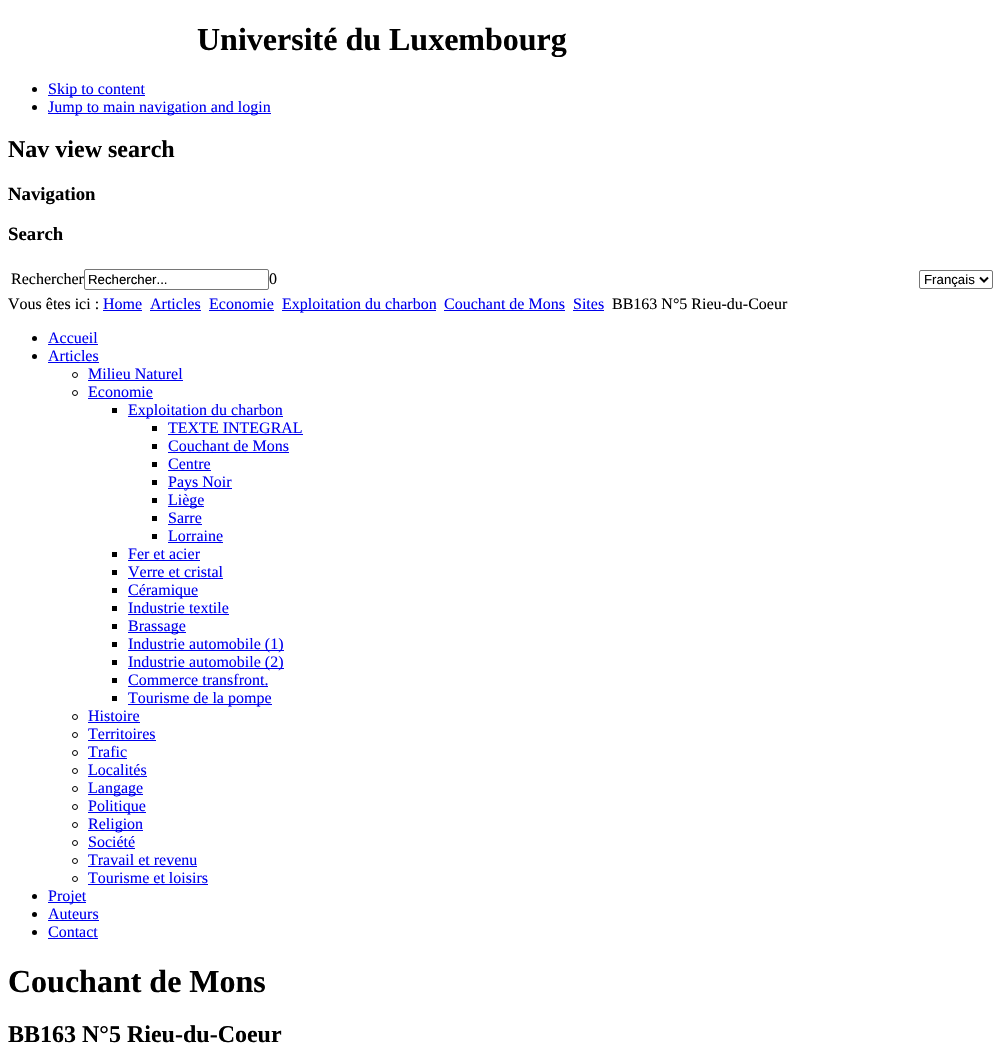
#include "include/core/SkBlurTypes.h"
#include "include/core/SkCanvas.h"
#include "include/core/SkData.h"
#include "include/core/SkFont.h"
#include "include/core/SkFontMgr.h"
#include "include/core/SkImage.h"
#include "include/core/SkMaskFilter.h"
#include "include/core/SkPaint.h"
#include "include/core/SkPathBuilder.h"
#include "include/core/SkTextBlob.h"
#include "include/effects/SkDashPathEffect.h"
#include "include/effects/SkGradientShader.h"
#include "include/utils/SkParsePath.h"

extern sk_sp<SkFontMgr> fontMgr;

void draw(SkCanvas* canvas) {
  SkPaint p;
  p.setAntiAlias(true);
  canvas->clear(SK_ColorWHITE);
  p.setColor(SK_ColorBLACK);
  canvas->drawCircle(34.5f, 89.5f, 2.5f, p);
  p.setColor(SkColorSetRGB(0, 0, 238));
  canvas->drawRect(SkRect::MakeLTRB(48, 95, 145, 96), p);
  p.setColor(SK_ColorBLACK);
  canvas->drawCircle(34.5f, 107.5f, 2.5f, p);
  p.setColor(SkColorSetRGB(0, 0, 238));
  canvas->drawRect(SkRect::MakeLTRB(48, 113, 271, 114), p);
  p.setStyle(SkPaint::kStroke_Style);
  p.setStrokeWidth(1);
  p.setColor(SkColorSetRGB(118, 118, 118));
  canvas->drawRoundRect(SkRect::MakeLTRB(84.5f, 269.5f, 268.5f, 289.5f), 1.5f, 1.5f, p);
  canvas->drawRoundRect(SkRect::MakeLTRB(919.5f, 270.5f, 992.5f, 288.5f), 1.5f, 1.5f, p);
  p.setStrokeWidth(2);
  p.setColor(SK_ColorBLACK);
  canvas->drawPath(SkPathBuilder().moveTo(980, 277.5f).lineTo(984, 281.5f).lineTo(988, 277.5f).detach(), p);
  p.setStyle(SkPaint::kFill_Style);
  p.setColor(SkColorSetRGB(0, 0, 238));
  canvas->drawRect(SkRect::MakeLTRB(103, 310, 142, 311), p);
  canvas->drawRect(SkRect::MakeLTRB(150, 310, 201, 311), p);
  canvas->drawRect(SkRect::MakeLTRB(209, 310, 274, 311), p);
  canvas->drawRect(SkRect::MakeLTRB(282, 310, 436, 311), p);
  canvas->drawRect(SkRect::MakeLTRB(444, 310, 565, 311), p);
  canvas->drawRect(SkRect::MakeLTRB(573, 310, 604, 311), p);
  p.setColor(SK_ColorBLACK);
  canvas->drawCircle(34.5f, 338.5f, 2.5f, p);
  p.setColor(SkColorSetRGB(0, 0, 238));
  canvas->drawRect(SkRect::MakeLTRB(48, 344, 98, 345), p);
  p.setColor(SK_ColorBLACK);
  canvas->drawCircle(34.5f, 356.5f, 2.5f, p);
  p.setColor(SkColorSetRGB(0, 0, 238));
  canvas->drawRect(SkRect::MakeLTRB(48, 362, 99, 363), p);
  p.setStyle(SkPaint::kStroke_Style);
  p.setStrokeWidth(1);
  p.setColor(SK_ColorBLACK);
  canvas->drawCircle(75, 375, 2.5f, p);
  p.setStyle(SkPaint::kFill_Style);
  p.setColor(SkColorSetRGB(0, 0, 238));
  canvas->drawRect(SkRect::MakeLTRB(88, 380, 183, 381), p);
  p.setStyle(SkPaint::kStroke_Style);
  p.setColor(SK_ColorBLACK);
  canvas->drawCircle(75, 393, 2.5f, p);
  p.setStyle(SkPaint::kFill_Style);
  p.setColor(SkColorSetRGB(0, 0, 238));
  canvas->drawRect(SkRect::MakeLTRB(88, 398, 153, 399), p);
  p.setColor(SK_ColorBLACK);
  canvas->drawRect(SkRect::MakeLTRB(112, 408, 117, 413), p);
  p.setColor(SkColorSetRGB(0, 0, 238));
  canvas->drawRect(SkRect::MakeLTRB(128, 416, 283, 417), p);
  p.setColor(SK_ColorBLACK);
  canvas->drawRect(SkRect::MakeLTRB(152, 426, 157, 431), p);
  p.setColor(SkColorSetRGB(0, 0, 238));
  canvas->drawRect(SkRect::MakeLTRB(168, 434, 303, 435), p);
  p.setColor(SK_ColorBLACK);
  canvas->drawRect(SkRect::MakeLTRB(152, 444, 157, 449), p);
  p.setColor(SkColorSetRGB(0, 0, 238));
  canvas->drawRect(SkRect::MakeLTRB(168, 452, 289, 453), p);
  p.setColor(SK_ColorBLACK);
  canvas->drawRect(SkRect::MakeLTRB(152, 462, 157, 467), p);
  p.setColor(SkColorSetRGB(0, 0, 238));
  canvas->drawRect(SkRect::MakeLTRB(168, 470, 211, 471), p);
  p.setColor(SK_ColorBLACK);
  canvas->drawRect(SkRect::MakeLTRB(152, 480, 157, 485), p);
  p.setColor(SkColorSetRGB(0, 0, 238));
  canvas->drawRect(SkRect::MakeLTRB(168, 488, 232, 489), p);
  p.setColor(SK_ColorBLACK);
  canvas->drawRect(SkRect::MakeLTRB(152, 498, 157, 503), p);
  p.setColor(SkColorSetRGB(0, 0, 238));
  canvas->drawRect(SkRect::MakeLTRB(168, 506, 204, 507), p);
  p.setColor(SK_ColorBLACK);
  canvas->drawRect(SkRect::MakeLTRB(152, 516, 157, 521), p);
  p.setColor(SkColorSetRGB(0, 0, 238));
  canvas->drawRect(SkRect::MakeLTRB(168, 524, 202, 525), p);
  p.setColor(SK_ColorBLACK);
  canvas->drawRect(SkRect::MakeLTRB(152, 534, 157, 539), p);
  p.setColor(SkColorSetRGB(0, 0, 238));
  canvas->drawRect(SkRect::MakeLTRB(168, 542, 223, 543), p);
  p.setColor(SK_ColorBLACK);
  canvas->drawRect(SkRect::MakeLTRB(112, 552, 117, 557), p);
  p.setColor(SkColorSetRGB(0, 0, 238));
  canvas->drawRect(SkRect::MakeLTRB(128, 560, 200, 561), p);
  p.setColor(SK_ColorBLACK);
  canvas->drawRect(SkRect::MakeLTRB(112, 570, 117, 575), p);
  p.setColor(SkColorSetRGB(0, 0, 238));
  canvas->drawRect(SkRect::MakeLTRB(128, 578, 223, 579), p);
  p.setColor(SK_ColorBLACK);
  canvas->drawRect(SkRect::MakeLTRB(112, 588, 117, 593), p);
  p.setColor(SkColorSetRGB(0, 0, 238));
  canvas->drawRect(SkRect::MakeLTRB(128, 596, 198, 597), p);
  p.setColor(SK_ColorBLACK);
  canvas->drawRect(SkRect::MakeLTRB(112, 606, 117, 611), p);
  p.setColor(SkColorSetRGB(0, 0, 238));
  canvas->drawRect(SkRect::MakeLTRB(128, 614, 229, 615), p);
  p.setColor(SK_ColorBLACK);
  canvas->drawRect(SkRect::MakeLTRB(112, 624, 117, 629), p);
  p.setColor(SkColorSetRGB(0, 0, 238));
  canvas->drawRect(SkRect::MakeLTRB(128, 632, 186, 633), p);
  p.setColor(SK_ColorBLACK);
  canvas->drawRect(SkRect::MakeLTRB(112, 642, 117, 647), p);
  p.setColor(SkColorSetRGB(0, 0, 238));
  canvas->drawRect(SkRect::MakeLTRB(128, 650, 284, 651), p);
  p.setColor(SK_ColorBLACK);
  canvas->drawRect(SkRect::MakeLTRB(112, 660, 117, 665), p);
  p.setColor(SkColorSetRGB(0, 0, 238));
  canvas->drawRect(SkRect::MakeLTRB(128, 668, 284, 669), p);
  p.setColor(SK_ColorBLACK);
  canvas->drawRect(SkRect::MakeLTRB(112, 678, 117, 683), p);
  p.setColor(SkColorSetRGB(0, 0, 238));
  canvas->drawRect(SkRect::MakeLTRB(128, 686, 268, 687), p);
  p.setColor(SK_ColorBLACK);
  canvas->drawRect(SkRect::MakeLTRB(112, 696, 117, 701), p);
  p.setColor(SkColorSetRGB(0, 0, 238));
  canvas->drawRect(SkRect::MakeLTRB(128, 704, 272, 705), p);
  p.setStyle(SkPaint::kStroke_Style);
  p.setColor(SK_ColorBLACK);
  canvas->drawCircle(75, 717, 2.5f, p);
  p.setStyle(SkPaint::kFill_Style);
  p.setColor(SkColorSetRGB(0, 0, 238));
  canvas->drawRect(SkRect::MakeLTRB(88, 722, 140, 723), p);
  p.setStyle(SkPaint::kStroke_Style);
  p.setColor(SK_ColorBLACK);
  canvas->drawCircle(75, 735, 2.5f, p);
  p.setStyle(SkPaint::kFill_Style);
  p.setColor(SkColorSetRGB(0, 0, 238));
  canvas->drawRect(SkRect::MakeLTRB(88, 740, 156, 741), p);
  p.setStyle(SkPaint::kStroke_Style);
  p.setColor(SK_ColorBLACK);
  canvas->drawCircle(75, 753, 2.5f, p);
  p.setStyle(SkPaint::kFill_Style);
  p.setColor(SkColorSetRGB(0, 0, 238));
  canvas->drawRect(SkRect::MakeLTRB(88, 758, 127, 759), p);
  p.setStyle(SkPaint::kStroke_Style);
  p.setColor(SK_ColorBLACK);
  canvas->drawCircle(75, 771, 2.5f, p);
  p.setStyle(SkPaint::kFill_Style);
  p.setColor(SkColorSetRGB(0, 0, 238));
  canvas->drawRect(SkRect::MakeLTRB(88, 776, 147, 777), p);
  p.setStyle(SkPaint::kStroke_Style);
  p.setColor(SK_ColorBLACK);
  canvas->drawCircle(75, 789, 2.5f, p);
  p.setStyle(SkPaint::kFill_Style);
  p.setColor(SkColorSetRGB(0, 0, 238));
  canvas->drawRect(SkRect::MakeLTRB(88, 794, 143, 795), p);
  p.setStyle(SkPaint::kStroke_Style);
  p.setColor(SK_ColorBLACK);
  canvas->drawCircle(75, 807, 2.5f, p);
  p.setStyle(SkPaint::kFill_Style);
  p.setColor(SkColorSetRGB(0, 0, 238));
  canvas->drawRect(SkRect::MakeLTRB(88, 812, 146, 813), p);
  p.setStyle(SkPaint::kStroke_Style);
  p.setColor(SK_ColorBLACK);
  canvas->drawCircle(75, 825, 2.5f, p);
  p.setStyle(SkPaint::kFill_Style);
  p.setColor(SkColorSetRGB(0, 0, 238));
  canvas->drawRect(SkRect::MakeLTRB(88, 830, 143, 831), p);
  p.setStyle(SkPaint::kStroke_Style);
  p.setColor(SK_ColorBLACK);
  canvas->drawCircle(75, 843, 2.5f, p);
  p.setStyle(SkPaint::kFill_Style);
  p.setColor(SkColorSetRGB(0, 0, 238));
  canvas->drawRect(SkRect::MakeLTRB(88, 848, 135, 849), p);
  p.setStyle(SkPaint::kStroke_Style);
  p.setColor(SK_ColorBLACK);
  canvas->drawCircle(75, 861, 2.5f, p);
  p.setStyle(SkPaint::kFill_Style);
  p.setColor(SkColorSetRGB(0, 0, 238));
  canvas->drawRect(SkRect::MakeLTRB(88, 866, 197, 867), p);
  p.setStyle(SkPaint::kStroke_Style);
  p.setColor(SK_ColorBLACK);
  canvas->drawCircle(75, 879, 2.5f, p);
  p.setStyle(SkPaint::kFill_Style);
  p.setColor(SkColorSetRGB(0, 0, 238));
  canvas->drawRect(SkRect::MakeLTRB(88, 884, 208, 885), p);
  p.setColor(SK_ColorBLACK);
  canvas->drawCircle(34.5f, 896.5f, 2.5f, p);
  p.setColor(SkColorSetRGB(0, 0, 238));
  canvas->drawRect(SkRect::MakeLTRB(48, 902, 86, 903), p);
  p.setColor(SK_ColorBLACK);
  canvas->drawCircle(34.5f, 914.5f, 2.5f, p);
  p.setColor(SkColorSetRGB(0, 0, 238));
  canvas->drawRect(SkRect::MakeLTRB(48, 920, 99, 921), p);
  p.setColor(SK_ColorBLACK);
  canvas->drawCircle(34.5f, 932.5f, 2.5f, p);
  p.setColor(SkColorSetRGB(0, 0, 238));
  canvas->drawRect(SkRect::MakeLTRB(48, 938, 98, 939), p);
  SkFont font1(fontMgr->matchFamilyStyle("Liberation Serif", SkFontStyle::Bold()), 32);
  font1.setSubpixel(true);
  p.setColor(SK_ColorBLACK);
  canvas->drawString("Université du Luxembourg", 197, 50, font1, p);
  SkFont font2(fontMgr->matchFamilyStyle("Liberation Serif", SkFontStyle::Normal()), 16);
  font2.setSubpixel(true);
  p.setColor(SkColorSetRGB(0, 0, 238));
  canvas->drawString("Skip to content", 48, 94, font2, p);
  canvas->drawString("Jump to main navigation and login", 48, 112, font2, p);
  SkFont font3(fontMgr->matchFamilyStyle("Liberation Serif", SkFontStyle::Bold()), 24);
  font3.setSubpixel(true);
  p.setColor(SK_ColorBLACK);
  canvas->drawString("Nav view search", 8, 157, font3, p);
  SkFont font4(fontMgr->matchFamilyStyle("Liberation Serif", SkFontStyle::Bold()), 18.75f);
  font4.setSubpixel(true);
  canvas->drawString("Navigation", 8, 200, font4, p);
  canvas->drawString("Search", 8, 240, font4, p);
  canvas->drawString("Rechercher", 11, 284, font2, p);
  SkFont font5(fontMgr->matchFamilyStyle("Liberation Sans", SkFontStyle::Normal()), 13.25f);
  font5.setSubpixel(true);
  canvas->drawString("Rechercher...", 88, 284, font5, p);
  canvas->drawString("0", 269, 284, font2, p);
  canvas->drawString("Français", 924, 284, font5, p);
  canvas->drawString("Vous êtes ici :", 8, 309, font2, p);
  p.setColor(SkColorSetRGB(0, 0, 238));
  canvas->drawString("Home", 103, 309, font2, p);
  canvas->drawString("Articles", 150, 309, font2, p);
  canvas->drawString("Economie", 209, 309, font2, p);
  canvas->drawString("Exploitation du charbon", 282, 309, font2, p);
  canvas->drawString("Couchant de Mons", 444, 309, font2, p);
  canvas->drawString("Sites", 573, 309, font2, p);
  p.setColor(SK_ColorBLACK);
  canvas->drawString("BB163 N°5 Rieu-du-Coeur", 612, 309, font2, p);
  p.setColor(SkColorSetRGB(0, 0, 238));
  canvas->drawString("Accueil", 48, 343, font2, p);
  canvas->drawString("Articles", 48, 361, font2, p);
  canvas->drawString("Milieu Naturel", 88, 379, font2, p);
  canvas->drawString("Economie", 88, 397, font2, p);
  canvas->drawString("Exploitation du charbon", 128, 415, font2, p);
  canvas->drawString("TEXTE INTEGRAL", 168, 433, font2, p);
  canvas->drawString("Couchant de Mons", 168, 451, font2, p);
  canvas->drawString("Centre", 168, 469, font2, p);
  canvas->drawString("Pays Noir", 168, 487, font2, p);
  canvas->drawString("Liège", 168, 505, font2, p);
  canvas->drawString("Sarre", 168, 523, font2, p);
  canvas->drawString("Lorraine", 168, 541, font2, p);
  canvas->drawString("Fer et acier", 128, 559, font2, p);
  canvas->drawString("Verre et cristal", 128, 577, font2, p);
  canvas->drawString("Céramique", 128, 595, font2, p);
  canvas->drawString("Industrie textile", 128, 613, font2, p);
  canvas->drawString("Brassage", 128, 631, font2, p);
  canvas->drawString("Industrie automobile (1)", 128, 649, font2, p);
  canvas->drawString("Industrie automobile (2)", 128, 667, font2, p);
  canvas->drawString("Commerce transfront.", 128, 685, font2, p);
  canvas->drawString("Tourisme de la pompe", 128, 703, font2, p);
  canvas->drawString("Histoire", 88, 721, font2, p);
  canvas->drawString("Territoires", 88, 739, font2, p);
  canvas->drawString("Trafic", 88, 757, font2, p);
  canvas->drawString("Localités", 88, 775, font2, p);
  canvas->drawString("Langage", 88, 793, font2, p);
  canvas->drawString("Politique", 88, 811, font2, p);
  canvas->drawString("Religion", 88, 829, font2, p);
  canvas->drawString("Société", 88, 847, font2, p);
  canvas->drawString("Travail et revenu", 88, 865, font2, p);
  canvas->drawString("Tourisme et loisirs", 88, 883, font2, p);
  canvas->drawString("Projet", 48, 901, font2, p);
  canvas->drawString("Auteurs", 48, 919, font2, p);
  canvas->drawString("Contact", 48, 937, font2, p);
  p.setColor(SK_ColorBLACK);
  canvas->drawString("Couchant de Mons", 8, 992, font1, p);
  canvas->drawString("BB163 N°5 Rieu-du-Coeur", 8, 1042, font3, p);
}
